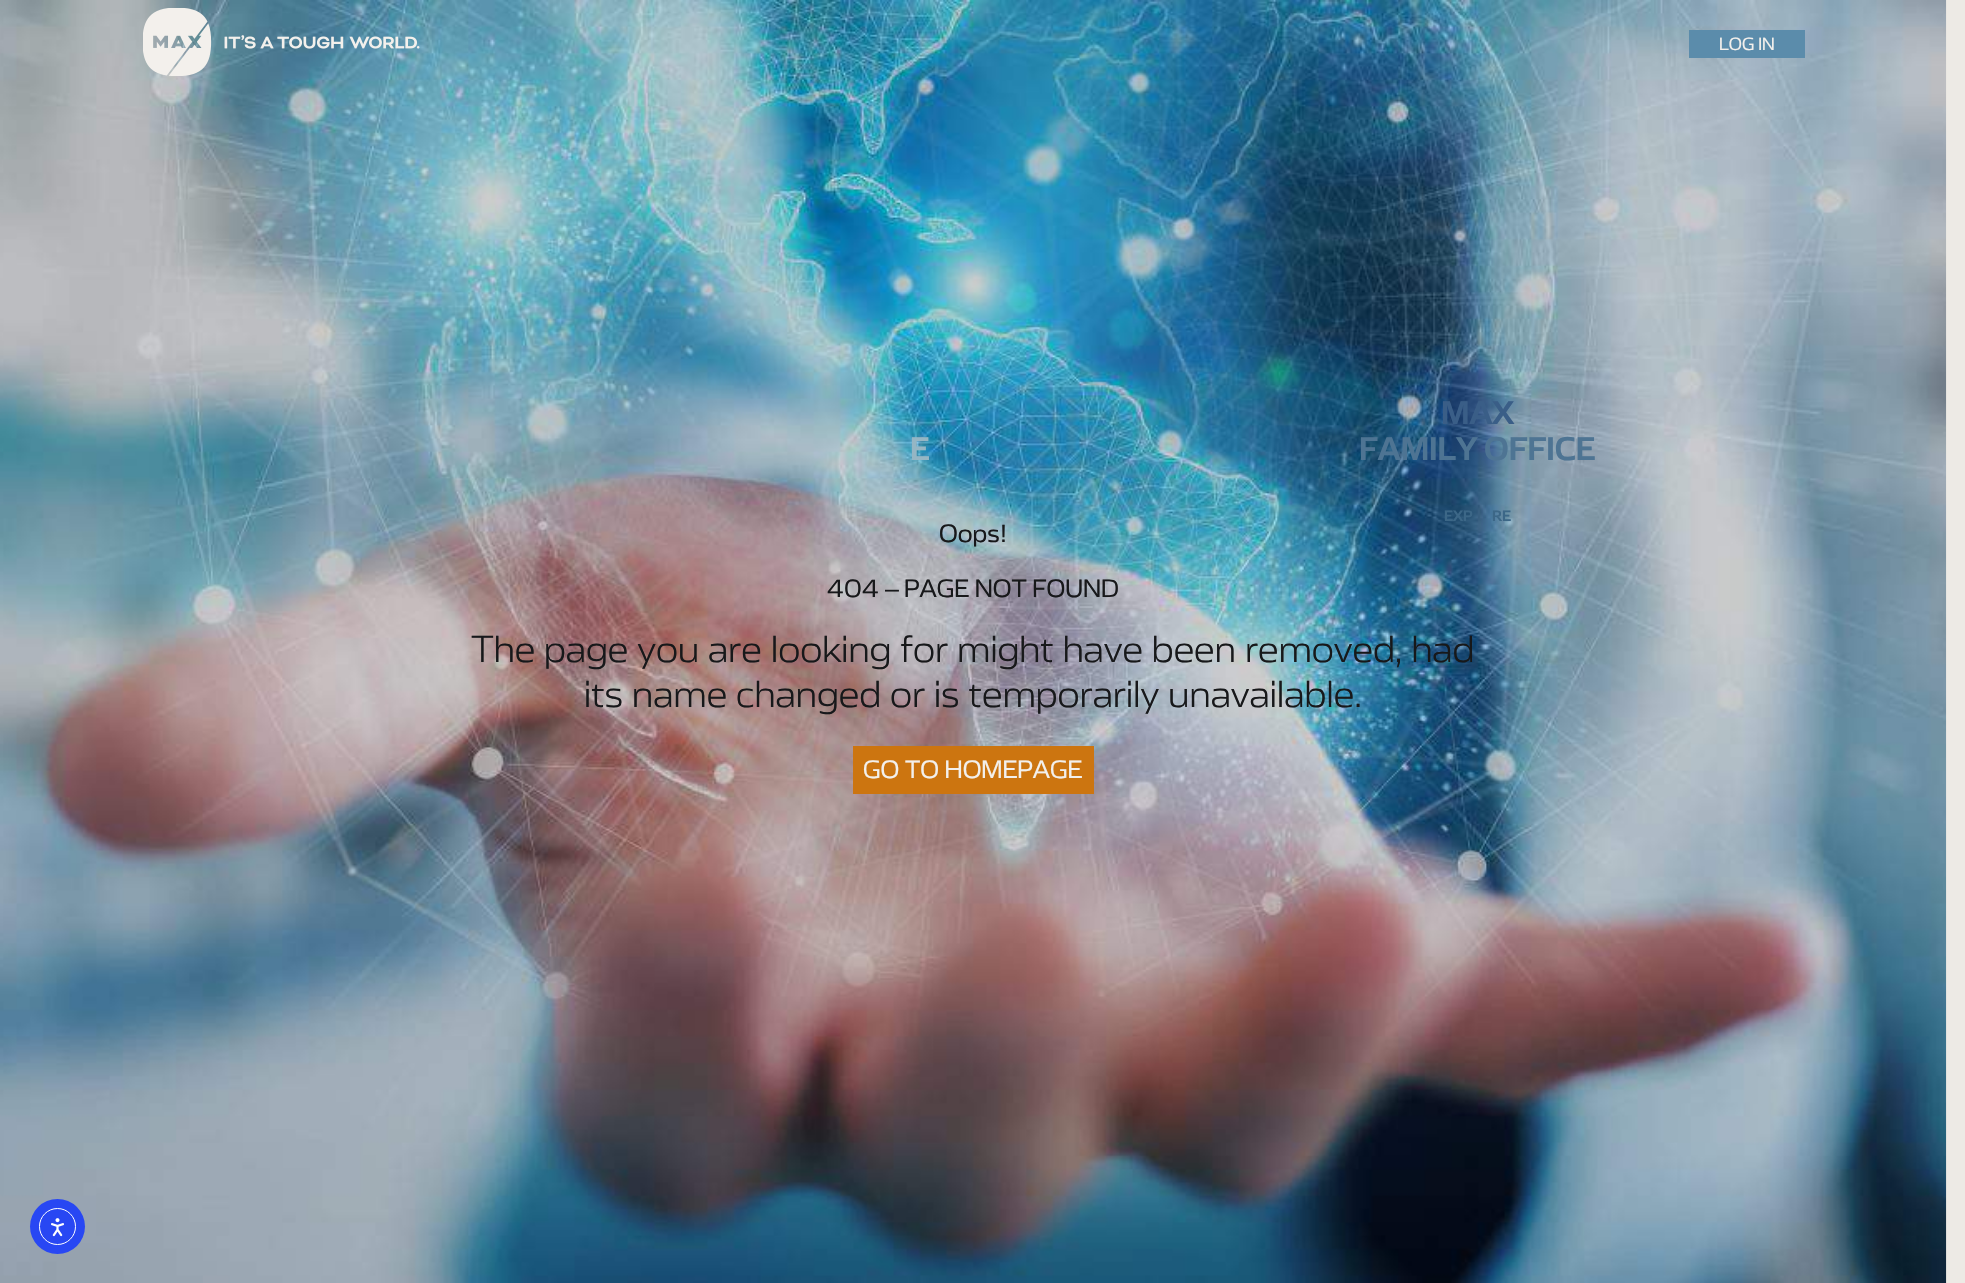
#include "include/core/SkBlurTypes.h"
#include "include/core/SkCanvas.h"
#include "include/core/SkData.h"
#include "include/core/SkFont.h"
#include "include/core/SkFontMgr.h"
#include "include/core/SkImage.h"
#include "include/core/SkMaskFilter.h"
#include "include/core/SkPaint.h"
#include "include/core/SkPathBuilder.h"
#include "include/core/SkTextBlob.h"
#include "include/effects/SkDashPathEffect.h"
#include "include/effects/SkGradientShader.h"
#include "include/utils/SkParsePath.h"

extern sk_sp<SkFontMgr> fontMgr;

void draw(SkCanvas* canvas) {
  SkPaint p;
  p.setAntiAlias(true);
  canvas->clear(SkColorSetRGB(237, 234, 229));
  canvas->drawImageRect(SkImages::DeferredFromEncodedData(SkData::MakeFromFileName("images/2.png")), SkRect::MakeLTRB(0, 0, 1947, 1283), SkSamplingOptions());
  canvas->drawImageRect(SkImages::DeferredFromEncodedData(SkData::MakeFromFileName("images/1.png")), SkRect::MakeLTRB(143, 8, 420, 76), SkSamplingOptions());
  p.setColor(SkColorSetRGB(91, 140, 171));
  canvas->drawRect(SkRect::MakeLTRB(1689, 30, 1805, 58), p);
  p.setColor(SkColorSetRGB(204, 117, 16));
  canvas->drawRect(SkRect::MakeLTRB(853, 746, 1094, 794), p);
  p.setColor(SkColorSetRGB(40, 71, 243));
  canvas->drawCircle(57.5f, 1226.5f, 27.5f, p);
  p.setStyle(SkPaint::kStroke_Style);
  p.setStrokeWidth(1);
  p.setColor(SK_ColorWHITE);
  canvas->drawCircle(57.5f, 1226.5f, 18, p);
  canvas->drawImageRect(SkImages::DeferredFromEncodedData(SkData::MakeFromFileName("images/3.png")), SkRect::MakeLTRB(51, 1218, 64, 1237), SkSamplingOptions());
  SkFont font1(fontMgr->matchFamilyStyle("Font", SkFontStyle::Normal()), 17.5f);
  font1.setSubpixel(true);
  p.setStyle(SkPaint::kFill_Style);
  p.setColor(SkColorSetRGB(243, 240, 236));
  canvas->drawString("LOG IN", 1719, 50, font1, p);
  SkFont font2(fontMgr->matchFamilyStyle("Font", SkFontStyle::Bold()), 32.5f);
  font2.setSubpixel(true);
  p.setColor(SkColorSetRGB(149, 182, 196));
  canvas->drawString("E", 910, 460, font2, p);
  p.setColor(SkColorSetRGB(58, 94, 135));
  canvas->drawString("MAX", 1441, 424, font2, p);
  p.setColor(SkColorSetRGB(78, 116, 147));
  canvas->drawString("FAMILY OFFICE", 1359, 460, font2, p);
  SkFont font3(fontMgr->matchFamilyStyle("Font", SkFontStyle::Bold()), 15);
  font3.setSubpixel(true);
  p.setColor(SkColorSetRGB(60, 103, 135));
  canvas->drawString("EXP", 1444, 521, font3, p);
  canvas->drawString("RE", 1492, 521, font3, p);
  SkFont font4(fontMgr->matchFamilyStyle("Font", SkFontStyle::Normal()), 25);
  font4.setSubpixel(true);
  p.setColor(SkColorSetRGB(23, 24, 26));
  canvas->drawString("Oops", 939, 542, font4, p);
  SkFont font5(fontMgr->matchFamilyStyle("Liberation Sans", SkFontStyle::Normal()), 25);
  font5.setSubpixel(true);
  canvas->drawString("!", 1000, 542, font5, p);
  canvas->drawString("404", 827, 597, font4, p);
  canvas->drawString("–", 885, 597, font5, p);
  canvas->drawString("PAGE NOT FOUND", 904, 597, font4, p);
  SkFont font6(fontMgr->matchFamilyStyle("Font", SkFontStyle(300, SkFontStyle::kNormal_Width, SkFontStyle::kUpright_Slant)), 37.5f);
  font6.setSubpixel(true);
  canvas->drawString("The page you are looking for might have been removed, had", 471, 662, font6, p);
  canvas->drawString("its name changed or is temporarily unavailable.", 584, 707, font6, p);
  p.setColor(SkColorSetRGB(243, 240, 236));
  canvas->drawString("GO TO HOMEPAGE", 863, 778, font4, p);
}
